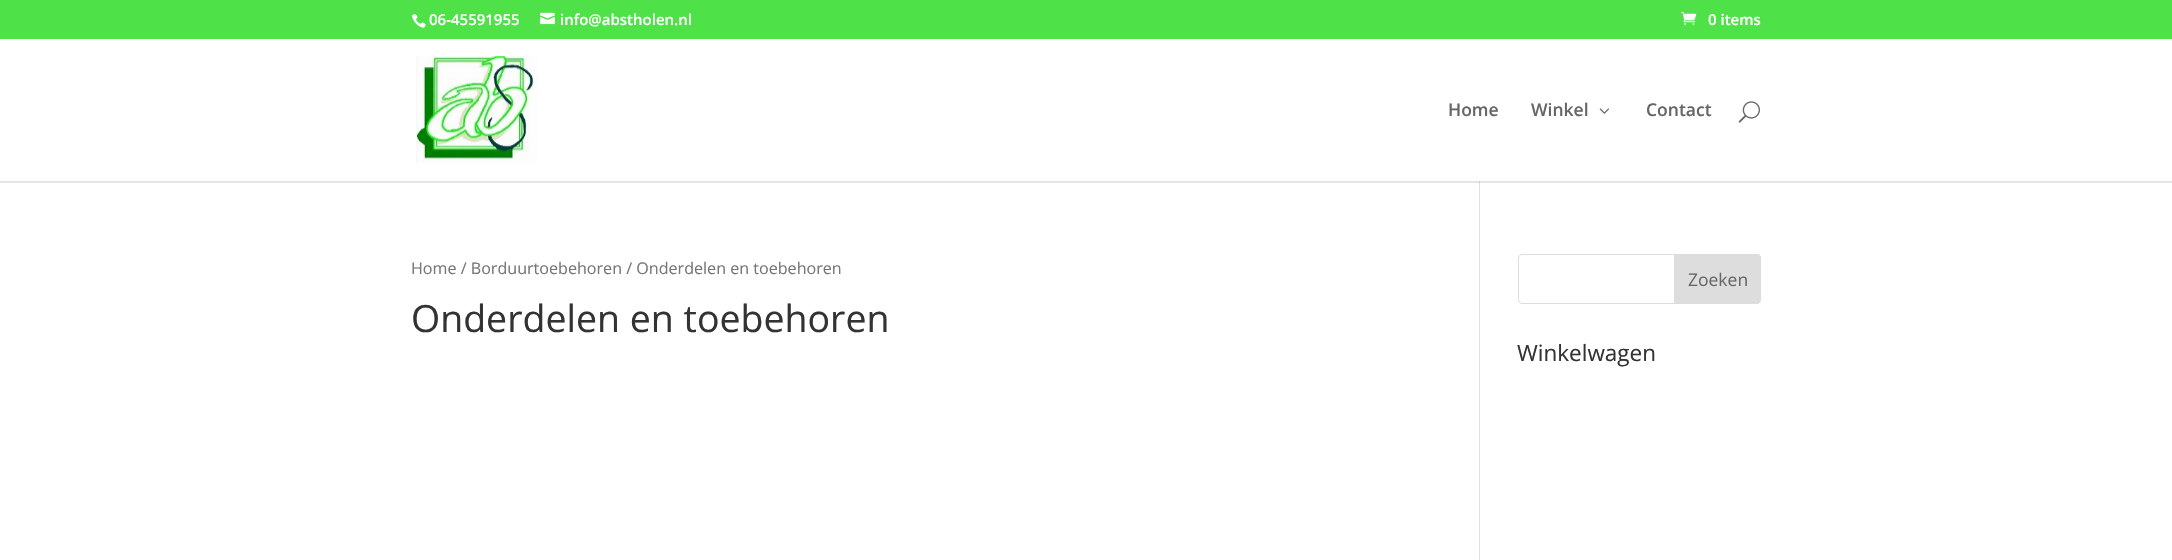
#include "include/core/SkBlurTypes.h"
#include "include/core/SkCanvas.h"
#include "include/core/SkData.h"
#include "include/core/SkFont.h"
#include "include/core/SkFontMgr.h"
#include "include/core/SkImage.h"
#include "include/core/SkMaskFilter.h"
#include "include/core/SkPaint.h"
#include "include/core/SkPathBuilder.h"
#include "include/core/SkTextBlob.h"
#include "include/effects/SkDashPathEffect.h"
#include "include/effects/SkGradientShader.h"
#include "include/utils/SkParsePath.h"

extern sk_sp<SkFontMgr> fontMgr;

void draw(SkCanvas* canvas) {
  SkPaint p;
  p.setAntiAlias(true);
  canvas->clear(SK_ColorWHITE);
  p.setColor(SkColorSetRGB(79, 225, 72));
  canvas->drawRect(SkRect::MakeLTRB(0, 0, 2172, 39), p);
  canvas->drawImageRect(SkImages::DeferredFromEncodedData(SkData::MakeFromFileName("images/1.png")), SkRect::MakeLTRB(411, 14, 426, 28), SkSamplingOptions());
  canvas->drawImageRect(SkImages::DeferredFromEncodedData(SkData::MakeFromFileName("images/2.png")), SkRect::MakeLTRB(540, 12, 555, 25), SkSamplingOptions());
  canvas->drawImageRect(SkImages::DeferredFromEncodedData(SkData::MakeFromFileName("images/3.png")), SkRect::MakeLTRB(1681, 11, 1697, 25), SkSamplingOptions());
  p.setColor(SkColorSetRGB(226, 226, 226));
  canvas->drawRect(SkRect::MakeLTRB(1479, 181, 1480, 560), p);
  p.setColor(SkColorSetARGB(26, 0, 0, 0));
  canvas->drawPath(SkPathBuilder().moveTo(0, 181).lineTo(0, 183).lineTo(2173, 183).lineTo(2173, 40).lineTo(2172, 40).lineTo(2172, 181).close().detach(), p);
  canvas->drawImageRect(SkImages::DeferredFromEncodedData(SkData::MakeFromFileName("images/4.png")), SkRect::MakeLTRB(416, 56, 538, 164), SkSamplingOptions());
  canvas->drawImageRect(SkImages::DeferredFromEncodedData(SkData::MakeFromFileName("images/5.png")), SkRect::MakeLTRB(1599, 108, 1609, 114), SkSamplingOptions());
  canvas->drawImageRect(SkImages::DeferredFromEncodedData(SkData::MakeFromFileName("images/6.png")), SkRect::MakeLTRB(1738, 101, 1760, 123), SkSamplingOptions());
  p.setStyle(SkPaint::kStroke_Style);
  p.setStrokeWidth(1);
  p.setColor(SkColorSetRGB(221, 221, 221));
  canvas->drawRoundRect(SkRect::MakeLTRB(1518.5f, 254.5f, 1760.5f, 303.5f), 3.5f, 3.5f, p);
  p.setStyle(SkPaint::kFill_Style);
  canvas->drawPath(SkPathBuilder().moveTo(1674.5f, 254.5f).lineTo(1757, 254.5f).cubicTo(1759, 254.5f, 1760.5f, 256, 1760.5f, 258).lineTo(1760.5f, 300).cubicTo(1760.5f, 302, 1759, 303.5f, 1757, 303.5f).lineTo(1674.5f, 303.5f).close().detach(), p);
  p.setStyle(SkPaint::kStroke_Style);
  canvas->drawPath(SkPathBuilder().moveTo(1674.5f, 254.5f).lineTo(1757, 254.5f).cubicTo(1759, 254.5f, 1760.5f, 256, 1760.5f, 258).lineTo(1760.5f, 300).cubicTo(1760.5f, 302, 1759, 303.5f, 1757, 303.5f).lineTo(1674.5f, 303.5f).close().detach(), p);
  SkFont font1(fontMgr->matchFamilyStyle("Open Sans", SkFontStyle(600, SkFontStyle::kNormal_Width, SkFontStyle::kUpright_Slant)), 15);
  font1.setSubpixel(true);
  p.setStyle(SkPaint::kFill_Style);
  p.setColor(SK_ColorWHITE);
  canvas->drawString("06-45591955", 429, 25, font1, p);
  canvas->drawString("info@abstholen.nl", 560, 25, font1, p);
  canvas->drawString("0 items", 1708, 25, font1, p);
  SkFont font2(fontMgr->matchFamilyStyle("Open Sans", SkFontStyle(600, SkFontStyle::kNormal_Width, SkFontStyle::kUpright_Slant)), 17.5f);
  font2.setSubpixel(true);
  p.setColor(SkColorSetRGB(102, 102, 102));
  canvas->drawString("Home", 1448, 116, font2, p);
  canvas->drawString("Winkel", 1531, 116, font2, p);
  canvas->drawString("Contact", 1646, 116, font2, p);
  SkFont font3(fontMgr->matchFamilyStyle("Open Sans", SkFontStyle::Normal()), 16.1f);
  font3.setSubpixel(true);
  p.setColor(SkColorSetRGB(118, 118, 118));
  canvas->drawString("Home / Borduurtoebehoren / Onderdelen en toebehoren", 411, 274, font3, p);
  SkFont font4(fontMgr->matchFamilyStyle("Open Sans", SkFontStyle::Normal()), 37.5f);
  font4.setSubpixel(true);
  p.setColor(SkColorSetRGB(51, 51, 51));
  canvas->drawString("Onderdelen en toebehoren", 411, 332, font4, p);
  SkFont font5(fontMgr->matchFamilyStyle("Open Sans", SkFontStyle::Normal()), 17.5f);
  font5.setSubpixel(true);
  p.setColor(SkColorSetRGB(102, 102, 102));
  canvas->drawString("Zoeken", 1688, 286, font5, p);
  SkFont font6(fontMgr->matchFamilyStyle("Open Sans", SkFontStyle::Normal()), 22.5f);
  font6.setSubpixel(true);
  p.setColor(SkColorSetRGB(51, 51, 51));
  canvas->drawString("Winkelwagen", 1517, 361, font6, p);
}
